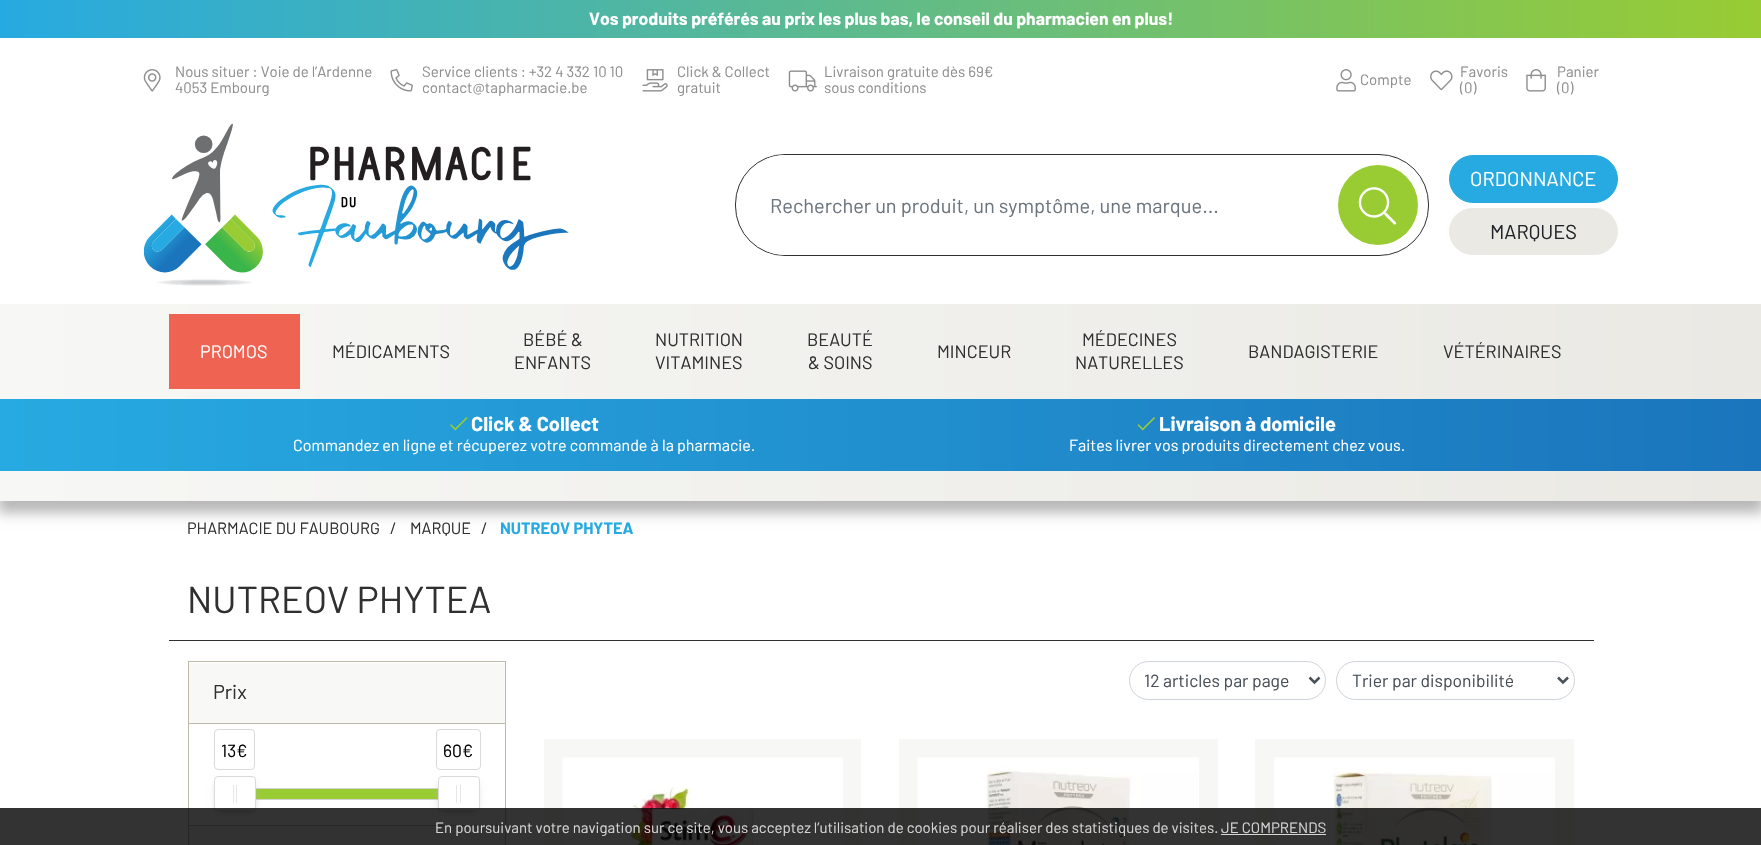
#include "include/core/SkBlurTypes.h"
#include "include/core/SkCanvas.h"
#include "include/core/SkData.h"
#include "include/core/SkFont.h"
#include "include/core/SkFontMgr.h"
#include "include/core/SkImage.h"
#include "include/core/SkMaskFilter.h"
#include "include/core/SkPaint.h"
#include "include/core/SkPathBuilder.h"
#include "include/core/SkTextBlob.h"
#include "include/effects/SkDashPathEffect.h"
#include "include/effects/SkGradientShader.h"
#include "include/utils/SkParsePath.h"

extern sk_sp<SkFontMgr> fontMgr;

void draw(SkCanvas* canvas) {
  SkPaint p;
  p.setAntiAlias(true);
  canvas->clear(SK_ColorWHITE);
  p.setColor(SkColorSetARGB(71, 0, 0, 0));
  p.setMaskFilter(SkMaskFilter::MakeBlur(kNormal_SkBlurStyle, 6));
  canvas->drawRect(SkRect::MakeLTRB(-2, 6, 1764, 513), p);
  p.setMaskFilter(nullptr);
  {
    const SkColor colors[] = {SkColorSetRGB(247, 247, 245), SkColorSetRGB(234, 233, 228)};
    const float stops[] = {0, 1};
    const SkPoint ends[] = {{0, 251}, {1761, 251}};
    p.setShader(SkGradientShader::MakeLinear(ends, colors, stops, 2, SkTileMode::kClamp));
    p.setAlpha(255);
  }
  canvas->drawRect(SkRect::MakeLTRB(0, 304, 1761, 501), p);
  {
    const SkColor colors[] = {SkColorSetRGB(39, 170, 225), SkColorSetRGB(153, 204, 51)};
    const float stops[] = {0, 1};
    const SkPoint ends[] = {{0, 19}, {1761, 19}};
    p.setShader(SkGradientShader::MakeLinear(ends, colors, stops, 2, SkTileMode::kClamp));
    p.setAlpha(255);
  }
  canvas->drawRect(SkRect::MakeLTRB(0, 0, 1761, 38), p);
  p.setShader(nullptr);
  p.setColor(SK_ColorWHITE);
  canvas->drawRect(SkRect::MakeLTRB(0, 38, 1761, 304), p);
  canvas->drawImageRect(SkImages::DeferredFromEncodedData(SkData::MakeFromFileName("images/1.png")), SkRect::MakeLTRB(143, 69, 161, 92), SkSamplingOptions());
  canvas->drawImageRect(SkImages::DeferredFromEncodedData(SkData::MakeFromFileName("images/2.png")), SkRect::MakeLTRB(390, 69, 413, 92), SkSamplingOptions());
  canvas->drawImageRect(SkImages::DeferredFromEncodedData(SkData::MakeFromFileName("images/3.png")), SkRect::MakeLTRB(642, 69, 668, 92), SkSamplingOptions());
  canvas->drawImageRect(SkImages::DeferredFromEncodedData(SkData::MakeFromFileName("images/4.png")), SkRect::MakeLTRB(788, 70, 817, 92), SkSamplingOptions());
  canvas->drawImageRect(SkImages::DeferredFromEncodedData(SkData::MakeFromFileName("images/5.png")), SkRect::MakeLTRB(1336, 69, 1356, 92), SkSamplingOptions());
  canvas->drawImageRect(SkImages::DeferredFromEncodedData(SkData::MakeFromFileName("images/6.png")), SkRect::MakeLTRB(1430, 70, 1453, 91), SkSamplingOptions());
  canvas->drawImageRect(SkImages::DeferredFromEncodedData(SkData::MakeFromFileName("images/7.png")), SkRect::MakeLTRB(1526, 69, 1546, 92), SkSamplingOptions());
  canvas->drawImageRect(SkImages::DeferredFromEncodedData(SkData::MakeFromFileName("images/8.png")), SkRect::MakeLTRB(144, 124, 569, 286), SkSamplingOptions());
  p.setStyle(SkPaint::kStroke_Style);
  p.setStrokeWidth(1);
  p.setColor(SkColorSetRGB(48, 48, 48));
  canvas->drawRoundRect(SkRect::MakeLTRB(735.5f, 154.5f, 1428.5f, 255.5f), 49.5f, 49.5f, p);
  canvas->save();
  canvas->clipPath(SkPathBuilder().moveTo(785, 155).lineTo(1379, 155).cubicTo(1406, 155, 1428, 177, 1428, 204).lineTo(1428, 206).cubicTo(1428, 233, 1406, 255, 1379, 255).lineTo(785, 255).cubicTo(758, 255, 736, 233, 736, 206).lineTo(736, 204).cubicTo(736, 177, 758, 155, 785, 155).close().detach(), true);
  p.setStyle(SkPaint::kFill_Style);
  p.setColor(SK_ColorWHITE);
  canvas->drawPath(SkPathBuilder().moveTo(780, 155).lineTo(1329, 155).lineTo(1329, 255).lineTo(780, 255).cubicTo(766, 255, 755, 244, 755, 230).lineTo(755, 180).cubicTo(755, 166, 766, 155, 780, 155).close().detach(), p);
  canvas->restore();
  p.setColor(SkColorSetRGB(153, 204, 51));
  canvas->drawCircle(1378, 205, 40, p);
  canvas->drawImageRect(SkImages::DeferredFromEncodedData(SkData::MakeFromFileName("images/9.png")), SkRect::MakeLTRB(1358, 187, 1397, 225), SkSamplingOptions());
  p.setColor(SkColorSetRGB(39, 170, 225));
  canvas->drawRoundRect(SkRect::MakeLTRB(1449.5f, 155.5f, 1617.5f, 202.5f), 23.5f, 23.5f, p);
  p.setStyle(SkPaint::kStroke_Style);
  canvas->drawRoundRect(SkRect::MakeLTRB(1449.5f, 155.5f, 1617.5f, 202.5f), 23.5f, 23.5f, p);
  p.setStyle(SkPaint::kFill_Style);
  p.setColor(SkColorSetRGB(234, 233, 228));
  canvas->drawRoundRect(SkRect::MakeLTRB(1449.5f, 208.5f, 1617.5f, 254.5f), 23, 23, p);
  p.setStyle(SkPaint::kStroke_Style);
  canvas->drawRoundRect(SkRect::MakeLTRB(1449.5f, 208.5f, 1617.5f, 254.5f), 23, 23, p);
  p.setStyle(SkPaint::kFill_Style);
  p.setColor(SkColorSetRGB(238, 99, 82));
  canvas->drawRect(SkRect::MakeLTRB(169, 314, 300, 389), p);
  {
    const SkColor colors[] = {SkColorSetRGB(39, 170, 225), SkColorSetRGB(27, 117, 188)};
    const float stops[] = {0, 1};
    const SkPoint ends[] = {{0, 435}, {1761, 435}};
    p.setShader(SkGradientShader::MakeLinear(ends, colors, stops, 2, SkTileMode::kClamp));
    p.setAlpha(255);
  }
  canvas->drawRect(SkRect::MakeLTRB(0, 399, 1761, 471), p);
  canvas->drawImageRect(SkImages::DeferredFromEncodedData(SkData::MakeFromFileName("images/10.png")), SkRect::MakeLTRB(450, 417, 468, 431), SkSamplingOptions());
  canvas->drawImageRect(SkImages::DeferredFromEncodedData(SkData::MakeFromFileName("images/11.png")), SkRect::MakeLTRB(1137, 417, 1155, 431), SkSamplingOptions());
  p.setShader(nullptr);
  p.setColor(SkColorSetRGB(48, 48, 48));
  canvas->drawRect(SkRect::MakeLTRB(169, 640, 1594, 641), p);
  p.setColor(SkColorSetRGB(189, 186, 171));
  canvas->drawRect(SkRect::MakeLTRB(188, 661, 506, 662), p);
  canvas->drawRect(SkRect::MakeLTRB(505, 661, 506, 825), p);
  canvas->drawRect(SkRect::MakeLTRB(188, 661, 189, 825), p);
  p.setColor(SkColorSetRGB(248, 248, 247));
  canvas->drawRect(SkRect::MakeLTRB(189, 663, 505, 723), p);
  p.setColor(SkColorSetRGB(189, 186, 171));
  canvas->drawRect(SkRect::MakeLTRB(189, 723, 505, 724), p);
  p.setStyle(SkPaint::kStroke_Style);
  p.setColor(SkColorSetRGB(211, 211, 211));
  canvas->drawRect(SkRect::MakeLTRB(234.5f, 788.5f, 459.5f, 799.5f), p);
  p.setStyle(SkPaint::kFill_Style);
  p.setColor(SkColorSetRGB(153, 204, 51));
  canvas->drawRect(SkRect::MakeLTRB(256, 789, 438, 799), p);
  p.setColor(SkColorSetRGB(187, 187, 187));
  p.setMaskFilter(SkMaskFilter::MakeBlur(kNormal_SkBlurStyle, 4));
  canvas->drawRect(SkRect::MakeLTRB(218, 784, 253, 811), p);
  p.setMaskFilter(nullptr);
  p.setColor(SK_ColorWHITE);
  canvas->drawRoundRect(SkRect::MakeLTRB(214.5f, 776.5f, 255.5f, 810.5f), 3.5f, 3.5f, p);
  p.setStyle(SkPaint::kStroke_Style);
  p.setColor(SkColorSetRGB(217, 217, 217));
  canvas->drawRoundRect(SkRect::MakeLTRB(214.5f, 776.5f, 255.5f, 810.5f), 3.5f, 3.5f, p);
  canvas->drawRoundRect(SkRect::MakeLTRB(214.5f, 729.5f, 254.5f, 769.5f), 3.5f, 3.5f, p);
  p.setStyle(SkPaint::kFill_Style);
  p.setColor(SkColorSetRGB(232, 231, 230));
  canvas->drawRect(SkRect::MakeLTRB(233, 785, 234, 803), p);
  canvas->drawRect(SkRect::MakeLTRB(236, 785, 237, 803), p);
  p.setColor(SkColorSetRGB(187, 187, 187));
  p.setMaskFilter(SkMaskFilter::MakeBlur(kNormal_SkBlurStyle, 4));
  canvas->drawRect(SkRect::MakeLTRB(441, 784, 476, 811), p);
  p.setMaskFilter(nullptr);
  p.setColor(SK_ColorWHITE);
  canvas->drawRoundRect(SkRect::MakeLTRB(438.5f, 776.5f, 479.5f, 810.5f), 3.5f, 3.5f, p);
  p.setStyle(SkPaint::kStroke_Style);
  p.setColor(SkColorSetRGB(217, 217, 217));
  canvas->drawRoundRect(SkRect::MakeLTRB(438.5f, 776.5f, 479.5f, 810.5f), 3.5f, 3.5f, p);
  canvas->drawRoundRect(SkRect::MakeLTRB(436.5f, 729.5f, 480.5f, 769.5f), 3.5f, 3.5f, p);
  p.setStyle(SkPaint::kFill_Style);
  p.setColor(SkColorSetRGB(232, 231, 230));
  canvas->drawRect(SkRect::MakeLTRB(456, 785, 457, 803), p);
  canvas->drawRect(SkRect::MakeLTRB(460, 785, 461, 803), p);
  p.setStyle(SkPaint::kStroke_Style);
  p.setColor(SkColorSetRGB(189, 186, 171));
  canvas->drawRect(SkRect::MakeLTRB(188.5f, 825.5f, 505.5f, 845.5f), p);
  p.setStyle(SkPaint::kFill_Style);
  p.setColor(SkColorSetRGB(248, 248, 247));
  canvas->drawRect(SkRect::MakeLTRB(189, 826, 505, 845), p);
  p.setStyle(SkPaint::kStroke_Style);
  p.setColor(SkColorSetRGB(206, 212, 218));
  canvas->drawRoundRect(SkRect::MakeLTRB(1129.5f, 661.5f, 1325.5f, 699.5f), 19, 19, p);
  p.setStrokeWidth(2.5f);
  p.setColor(SkColorSetRGB(73, 80, 87));
  canvas->drawPath(SkPathBuilder().moveTo(1309.5f, 677.5f).lineTo(1314.5f, 682.5f).lineTo(1319.5f, 677.5f).detach(), p);
  p.setStrokeWidth(1);
  p.setColor(SkColorSetRGB(206, 212, 218));
  canvas->drawRoundRect(SkRect::MakeLTRB(1336.5f, 661.5f, 1574.5f, 699.5f), 19, 19, p);
  p.setStrokeWidth(2.5f);
  p.setColor(SkColorSetRGB(73, 80, 87));
  canvas->drawPath(SkPathBuilder().moveTo(1558, 677.5f).lineTo(1563, 682.5f).lineTo(1568, 677.5f).detach(), p);
  p.setStyle(SkPaint::kFill_Style);
  p.setColor(SkColorSetRGB(247, 247, 245));
  canvas->drawRect(SkRect::MakeLTRB(544, 739, 861, 845), p);
  p.setColor(SK_ColorWHITE);
  canvas->drawRect(SkRect::MakeLTRB(842, 758, 843, 845), p);
  canvas->drawImageRect(SkImages::DeferredFromEncodedData(SkData::MakeFromFileName("images/12.png")), SkRect::MakeLTRB(562, 757, 842, 845), SkSamplingOptions());
  p.setColor(SkColorSetRGB(247, 247, 245));
  canvas->drawRect(SkRect::MakeLTRB(899, 739, 1218, 845), p);
  p.setColor(SK_ColorWHITE);
  canvas->drawRect(SkRect::MakeLTRB(1198, 758, 1199, 845), p);
  canvas->drawImageRect(SkImages::DeferredFromEncodedData(SkData::MakeFromFileName("images/13.png")), SkRect::MakeLTRB(917, 757, 1198, 845), SkSamplingOptions());
  p.setColor(SkColorSetRGB(247, 247, 245));
  canvas->drawRect(SkRect::MakeLTRB(1255, 739, 1574, 845), p);
  canvas->drawImageRect(SkImages::DeferredFromEncodedData(SkData::MakeFromFileName("images/14.png")), SkRect::MakeLTRB(1274, 757, 1555, 845), SkSamplingOptions());
  p.setColor(SkColorSetARGB(204, 0, 0, 0));
  canvas->drawRect(SkRect::MakeLTRB(0, 808, 1761, 845), p);
  p.setColor(SkColorSetRGB(214, 214, 214));
  canvas->drawRect(SkRect::MakeLTRB(1221, 834, 1326, 835), p);
  SkFont font1(fontMgr->matchFamilyStyle("Barlow", SkFontStyle::Bold()), 17.5f);
  font1.setSubpixel(true);
  p.setColor(SK_ColorWHITE);
  canvas->drawString("Vos produits préférés au prix les plus bas, le conseil du pharmacien en plus!", 589, 25, font1, p);
  SkFont font2(fontMgr->matchFamilyStyle("Barlow", SkFontStyle::Normal()), 15);
  font2.setSubpixel(true);
  p.setColor(SkColorSetRGB(142, 142, 142));
  canvas->drawString("Nous situer : Voie de l’Ardenne", 175, 77, font2, p);
  canvas->drawString("4053 Embourg", 175, 93, font2, p);
  canvas->drawString("Service clients : +32 4 332 10 10", 422, 77, font2, p);
  canvas->drawString("contact@tapharmacie.be", 422, 93, font2, p);
  canvas->drawString("Click & Collect", 677, 77, font2, p);
  canvas->drawString("gratuit", 677, 93, font2, p);
  canvas->drawString("Livraison gratuite dès 69€", 824, 77, font2, p);
  canvas->drawString("sous conditions", 824, 93, font2, p);
  canvas->drawString("Compte", 1360, 85, font2, p);
  canvas->drawString("Favoris", 1460, 77, font2, p);
  canvas->drawString("(0)", 1460, 93, font2, p);
  canvas->drawString("Panier", 1557, 77, font2, p);
  canvas->drawString("(0)", 1557, 93, font2, p);
  SkFont font3(fontMgr->matchFamilyStyle("Barlow", SkFontStyle::Normal()), 20);
  font3.setSubpixel(true);
  p.setColor(SkColorSetRGB(108, 117, 125));
  canvas->drawString("Rechercher un produit, un symptôme, une marque...", 770, 213, font3, p);
  p.setColor(SK_ColorWHITE);
  canvas->drawString("ORDONNANCE", 1470, 186, font3, p);
  p.setColor(SkColorSetRGB(33, 37, 41));
  canvas->drawString("MARQUES", 1490, 239, font3, p);
  SkFont font4(fontMgr->matchFamilyStyle("Barlow", SkFontStyle::Normal()), 18);
  font4.setSubpixel(true);
  p.setColor(SK_ColorWHITE);
  canvas->drawString("PROMOS", 200, 358, font4, p);
  p.setColor(SkColorSetRGB(48, 48, 48));
  canvas->drawString("MÉDICAMENTS", 332, 358, font4, p);
  canvas->drawString("BÉBÉ &", 523, 346, font4, p);
  canvas->drawString("ENFANTS", 514, 369, font4, p);
  canvas->drawString("NUTRITION", 655, 346, font4, p);
  canvas->drawString("VITAMINES", 655, 369, font4, p);
  canvas->drawString("BEAUTÉ", 807, 346, font4, p);
  canvas->drawString("& SOINS", 808, 369, font4, p);
  canvas->drawString("MINCEUR", 937, 358, font4, p);
  canvas->drawString("MÉDECINES", 1082, 346, font4, p);
  canvas->drawString("NATURELLES", 1075, 369, font4, p);
  canvas->drawString("BANDAGISTERIE", 1248, 358, font4, p);
  canvas->drawString("VÉTÉRINAIRES", 1443, 358, font4, p);
  SkFont font5(fontMgr->matchFamilyStyle("Barlow", SkFontStyle::Bold()), 20);
  font5.setSubpixel(true);
  p.setColor(SK_ColorWHITE);
  canvas->drawString("Click & Collect", 471, 431, font5, p);
  SkFont font6(fontMgr->matchFamilyStyle("Barlow", SkFontStyle::Normal()), 16);
  font6.setSubpixel(true);
  canvas->drawString("Commandez en ligne et récuperez votre commande à la pharmacie.", 293, 451, font6, p);
  canvas->drawString("Livraison à domicile", 1159, 431, font5, p);
  canvas->drawString("Faites livrer vos produits directement chez vous.", 1069, 451, font6, p);
  SkFont font7(fontMgr->matchFamilyStyle("Barlow", SkFontStyle::Normal()), 16.25f);
  font7.setSubpixel(true);
  p.setColor(SkColorSetRGB(48, 48, 48));
  canvas->drawString("PHARMACIE DU FAUBOURG", 187, 534, font7, p);
  canvas->drawString("/", 390, 534, font7, p);
  canvas->drawString("MARQUE", 410, 534, font7, p);
  canvas->drawString("/", 481, 534, font7, p);
  SkFont font8(fontMgr->matchFamilyStyle("Barlow", SkFontStyle::Bold()), 16.25f);
  font8.setSubpixel(true);
  p.setColor(SkColorSetRGB(39, 170, 225));
  canvas->drawString("NUTREOV PHYTEA", 500, 534, font8, p);
  SkFont font9(fontMgr->matchFamilyStyle("Barlow", SkFontStyle::Normal()), 37.5f);
  font9.setSubpixel(true);
  p.setColor(SkColorSetRGB(48, 48, 48));
  canvas->drawString("NUTREOV PHYTEA", 187, 613, font9, p);
  canvas->drawString("Prix", 213, 699, font3, p);
  SkFont font10(fontMgr->matchFamilyStyle("Barlow", SkFontStyle::Normal()), 17.5f);
  font10.setSubpixel(true);
  p.setColor(SK_ColorBLACK);
  canvas->drawString("13€", 221, 757, font10, p);
  canvas->drawString("60€", 443, 757, font10, p);
  p.setColor(SkColorSetRGB(73, 80, 87));
  canvas->drawString("12 articles par page", 1144, 687, font10, p);
  canvas->drawString("Trier par disponibilité", 1352, 687, font10, p);
  p.setColor(SkColorSetRGB(214, 213, 213));
  canvas->drawString("En poursuivant votre navigation sur ce site, vous acceptez l’utilisation de cookies pour réaliser des statistiques de visites.", 435, 833, font2, p);
  canvas->drawString("JE COMPRENDS", 1221, 833, font2, p);
}
